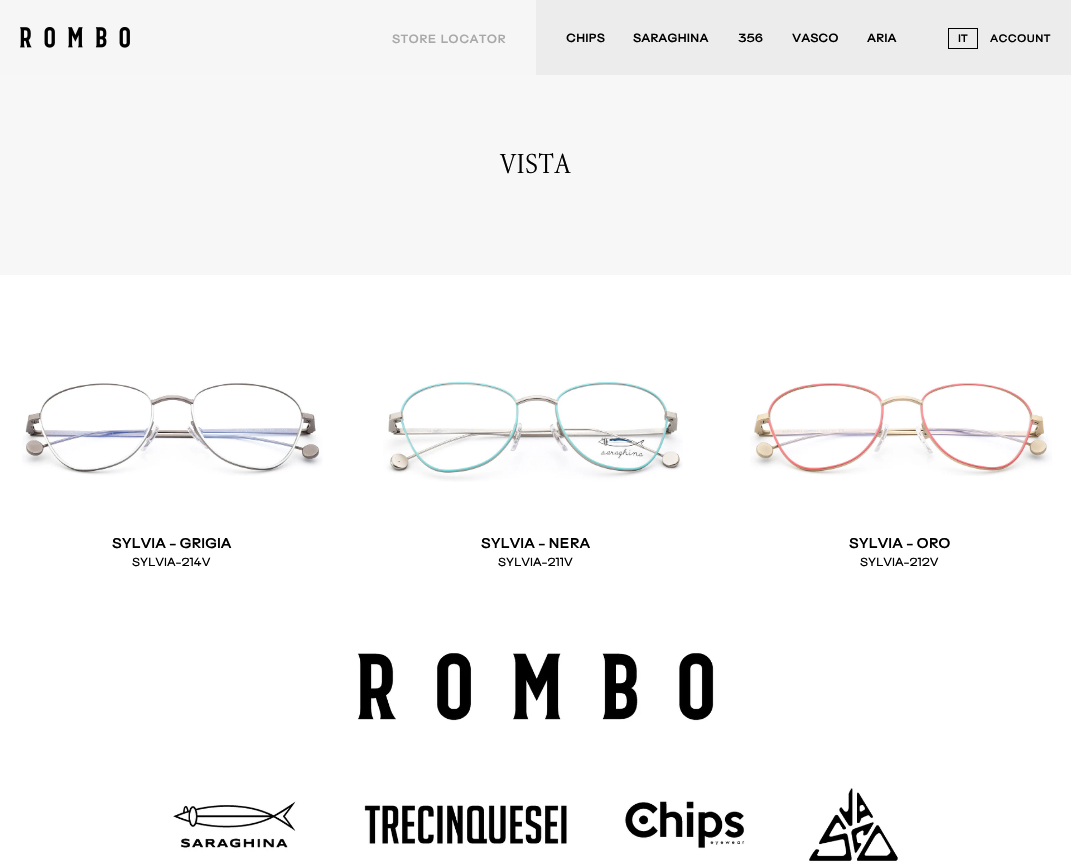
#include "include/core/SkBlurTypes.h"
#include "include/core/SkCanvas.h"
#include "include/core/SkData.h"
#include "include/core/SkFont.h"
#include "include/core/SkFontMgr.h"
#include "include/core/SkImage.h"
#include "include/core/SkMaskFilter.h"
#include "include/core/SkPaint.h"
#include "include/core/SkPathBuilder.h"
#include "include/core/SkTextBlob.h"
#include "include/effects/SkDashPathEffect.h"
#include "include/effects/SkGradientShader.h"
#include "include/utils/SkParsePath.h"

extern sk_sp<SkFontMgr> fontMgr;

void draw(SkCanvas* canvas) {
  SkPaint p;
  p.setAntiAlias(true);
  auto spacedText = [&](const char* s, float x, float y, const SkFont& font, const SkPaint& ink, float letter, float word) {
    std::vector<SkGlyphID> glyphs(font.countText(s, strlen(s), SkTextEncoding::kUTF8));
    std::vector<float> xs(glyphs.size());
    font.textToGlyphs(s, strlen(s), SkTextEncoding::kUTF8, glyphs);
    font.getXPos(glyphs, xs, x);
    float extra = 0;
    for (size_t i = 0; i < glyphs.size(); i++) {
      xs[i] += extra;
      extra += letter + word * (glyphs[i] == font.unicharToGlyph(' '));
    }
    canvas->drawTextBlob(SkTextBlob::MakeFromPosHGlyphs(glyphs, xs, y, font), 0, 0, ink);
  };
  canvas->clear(SK_ColorWHITE);
  p.setColor(SkColorSetRGB(246, 246, 246));
  canvas->drawRect(SkRect::MakeLTRB(0, 0, 536, 75), p);
  canvas->drawImageRect(SkImages::DeferredFromEncodedData(SkData::MakeFromFileName("images/1.png")), SkRect::MakeLTRB(20, 27, 130, 48), SkSamplingOptions());
  p.setColor(SkColorSetRGB(236, 236, 236));
  canvas->drawRect(SkRect::MakeLTRB(536, 0, 1071, 75), p);
  p.setStyle(SkPaint::kStroke_Style);
  p.setStrokeWidth(1);
  p.setColor(SK_ColorBLACK);
  canvas->drawRect(SkRect::MakeLTRB(948.5f, 28.5f, 977.5f, 48.5f), p);
  p.setStyle(SkPaint::kFill_Style);
  p.setColor(SkColorSetRGB(247, 247, 247));
  canvas->drawRect(SkRect::MakeLTRB(0, 75, 1071, 275), p);
  canvas->drawImageRect(SkImages::DeferredFromEncodedData(SkData::MakeFromFileName("images/2.png")), SkRect::MakeLTRB(22, 382, 323, 476), SkSamplingOptions());
  canvas->drawImageRect(SkImages::DeferredFromEncodedData(SkData::MakeFromFileName("images/3.png")), SkRect::MakeLTRB(383, 380, 683, 482), SkSamplingOptions());
  canvas->drawImageRect(SkImages::DeferredFromEncodedData(SkData::MakeFromFileName("images/4.png")), SkRect::MakeLTRB(750, 382, 1052, 476), SkSamplingOptions());
  canvas->drawImageRect(SkImages::DeferredFromEncodedData(SkData::MakeFromFileName("images/5.png")), SkRect::MakeLTRB(0, 645, 1071, 863), SkSamplingOptions());
  SkFont font1(fontMgr->matchFamilyStyle("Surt", SkFontStyle(600, SkFontStyle::kNormal_Width, SkFontStyle::kUpright_Slant)), 11);
  font1.setSubpixel(true);
  p.setColor(SkColorSetRGB(168, 168, 168));
  spacedText("STORE LOCATOR", 392, 43, font1, p, 0.5f, 0);
  p.setColor(SK_ColorBLACK);
  canvas->drawString("CHIPS", 566, 42, font1, p);
  canvas->drawString("SARAGHINA", 633, 42, font1, p);
  canvas->drawString("356", 738, 42, font1, p);
  canvas->drawString("VASCO", 792, 42, font1, p);
  canvas->drawString("ARIA", 867, 42, font1, p);
  SkFont font2(fontMgr->matchFamilyStyle("Surt", SkFontStyle(600, SkFontStyle::kNormal_Width, SkFontStyle::kUpright_Slant)), 10);
  font2.setSubpixel(true);
  canvas->drawString("IT", 958, 42, font2, p);
  spacedText("ACCOUNT", 990, 42, font2, p, 0.25f, 0);
  SkFont font3(fontMgr->matchFamilyStyle("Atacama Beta", SkFontStyle(300, SkFontStyle::kNormal_Width, SkFontStyle::kUpright_Slant)), 24);
  font3.setSubpixel(true);
  spacedText("VISTA", 500, 173, font3, p, 0.75f, 0);
  SkFont font4(fontMgr->matchFamilyStyle("Surt", SkFontStyle(600, SkFontStyle::kNormal_Width, SkFontStyle::kUpright_Slant)), 13);
  font4.setSubpixel(true);
  canvas->drawString("SYLVIA - GRIGIA", 112, 548, font4, p);
  SkFont font5(fontMgr->matchFamilyStyle("Surt", SkFontStyle(500, SkFontStyle::kNormal_Width, SkFontStyle::kUpright_Slant)), 10.75f);
  font5.setSubpixel(true);
  canvas->drawString("SYLVIA-214V", 132, 566, font5, p);
  canvas->drawString("SYLVIA - NERA", 481, 548, font4, p);
  canvas->drawString("SYLVIA-211V", 498, 566, font5, p);
  canvas->drawString("SYLVIA - ORO", 849, 548, font4, p);
  canvas->drawString("SYLVIA-212V", 860, 566, font5, p);
}
